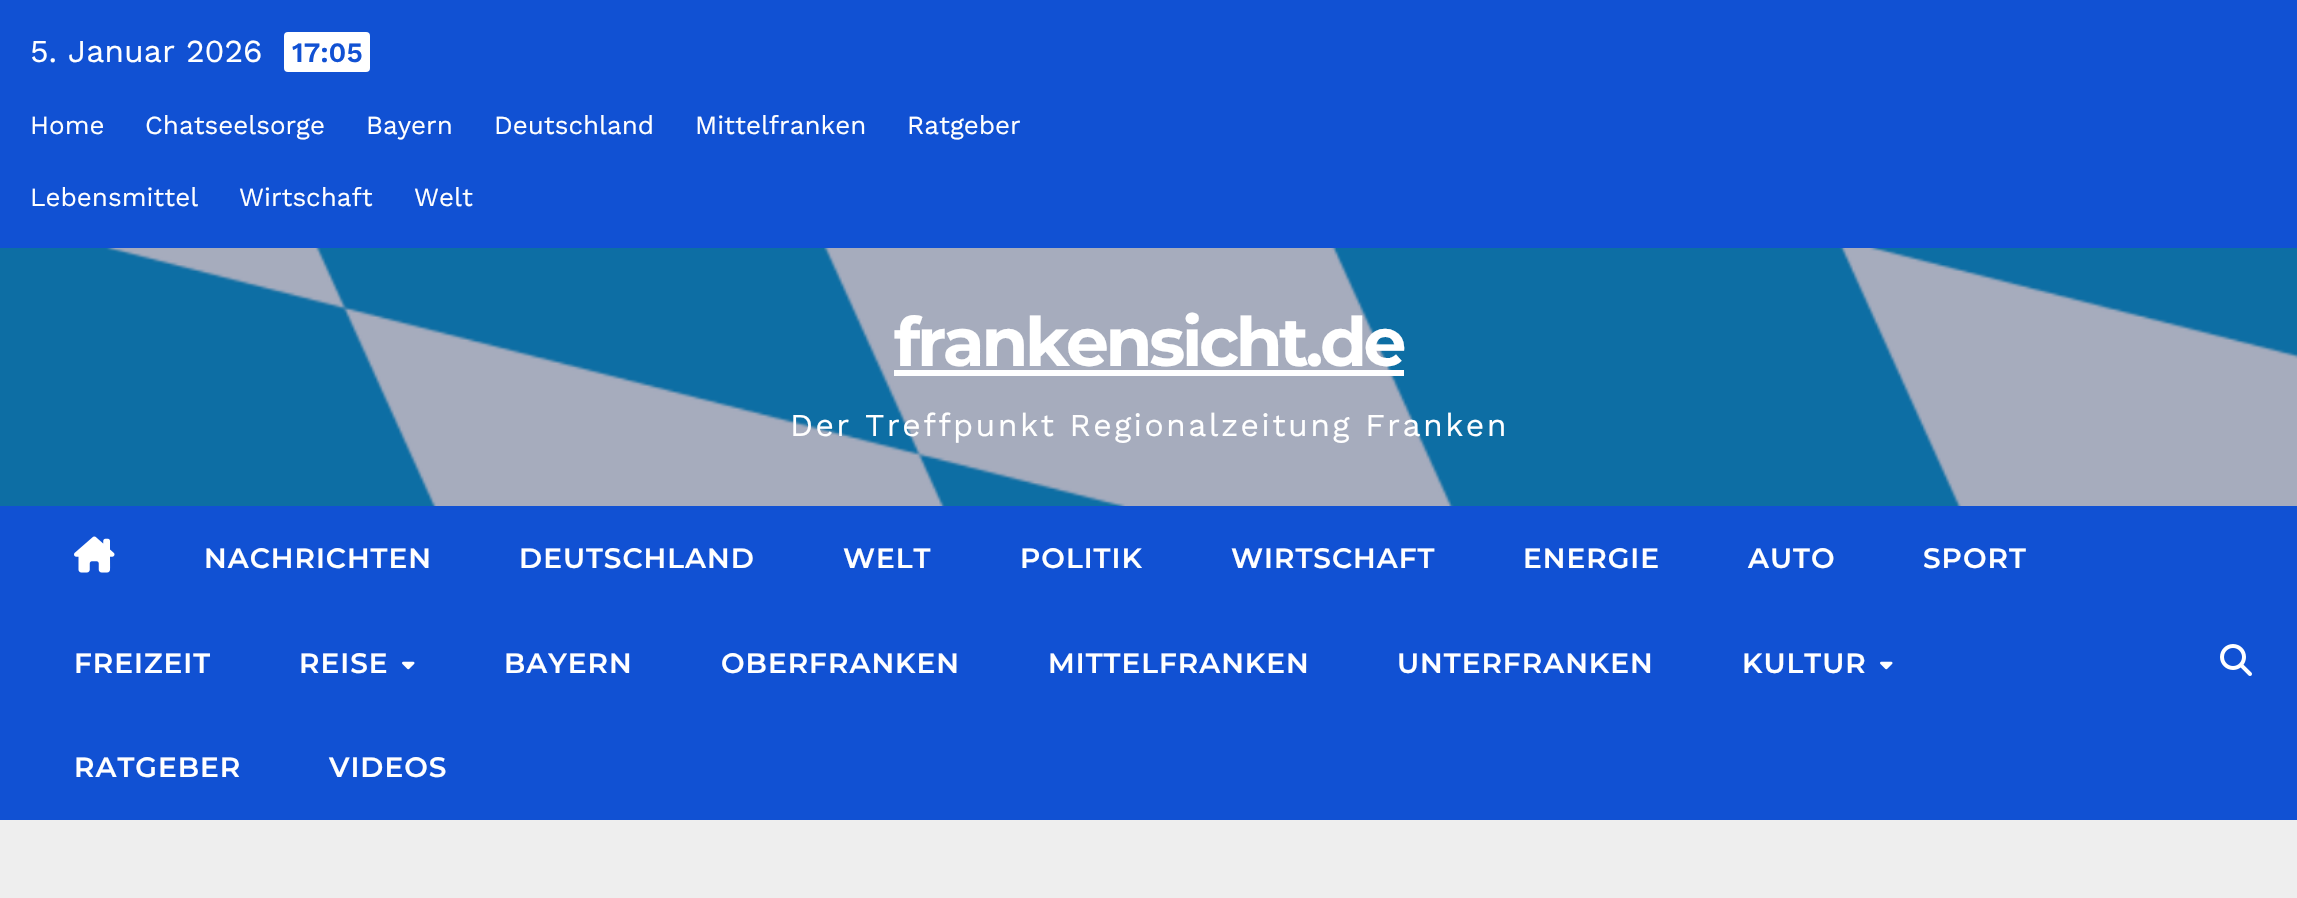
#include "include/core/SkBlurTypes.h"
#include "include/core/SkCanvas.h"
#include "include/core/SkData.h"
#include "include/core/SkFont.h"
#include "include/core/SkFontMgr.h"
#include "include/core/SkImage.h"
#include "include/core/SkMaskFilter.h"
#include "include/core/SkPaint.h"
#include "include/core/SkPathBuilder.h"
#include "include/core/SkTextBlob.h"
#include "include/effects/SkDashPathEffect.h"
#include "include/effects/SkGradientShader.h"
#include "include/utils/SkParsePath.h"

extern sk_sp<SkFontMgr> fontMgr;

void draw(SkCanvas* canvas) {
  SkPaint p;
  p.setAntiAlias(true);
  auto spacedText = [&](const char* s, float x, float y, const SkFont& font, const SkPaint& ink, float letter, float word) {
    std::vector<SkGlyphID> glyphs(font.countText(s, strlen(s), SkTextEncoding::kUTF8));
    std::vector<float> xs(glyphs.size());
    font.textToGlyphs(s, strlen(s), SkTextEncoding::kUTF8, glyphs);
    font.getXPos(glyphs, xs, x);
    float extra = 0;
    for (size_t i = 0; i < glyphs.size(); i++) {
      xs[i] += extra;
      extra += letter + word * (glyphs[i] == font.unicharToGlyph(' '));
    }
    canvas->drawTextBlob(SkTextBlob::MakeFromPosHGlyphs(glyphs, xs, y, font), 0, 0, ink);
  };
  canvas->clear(SkColorSetRGB(238, 238, 238));
  p.setColor(SkColorSetRGB(17, 81, 211));
  canvas->drawRect(SkRect::MakeLTRB(0, 0, 2297, 248), p);
  p.setColor(SK_ColorWHITE);
  canvas->drawRoundRect(SkRect::MakeLTRB(284, 32, 370, 72), 4, 4, p);
  canvas->drawImageRect(SkImages::DeferredFromEncodedData(SkData::MakeFromFileName("images/1.png")), SkRect::MakeLTRB(0, 248, 2297, 506), SkSamplingOptions());
  canvas->drawRect(SkRect::MakeLTRB(894, 370, 1404, 376), p);
  p.setColor(SkColorSetRGB(17, 81, 211));
  canvas->drawRect(SkRect::MakeLTRB(0, 506, 2297, 820), p);
  canvas->drawImageRect(SkImages::DeferredFromEncodedData(SkData::MakeFromFileName("images/2.png")), SkRect::MakeLTRB(74, 536, 115, 573), SkSamplingOptions());
  canvas->drawImageRect(SkImages::DeferredFromEncodedData(SkData::MakeFromFileName("images/3.png")), SkRect::MakeLTRB(402, 661, 415, 670), SkSamplingOptions());
  canvas->drawImageRect(SkImages::DeferredFromEncodedData(SkData::MakeFromFileName("images/3.png")), SkRect::MakeLTRB(1880, 661, 1893, 670), SkSamplingOptions());
  canvas->drawImageRect(SkImages::DeferredFromEncodedData(SkData::MakeFromFileName("images/4.png")), SkRect::MakeLTRB(2220, 644, 2252, 676), SkSamplingOptions());
  SkFont font1(fontMgr->matchFamilyStyle("Work Sans", SkFontStyle::Normal()), 32);
  font1.setSubpixel(true);
  p.setColor(SK_ColorWHITE);
  canvas->drawString("5. Januar 2026", 30, 62, font1, p);
  SkFont font2(fontMgr->matchFamilyStyle("Work Sans", SkFontStyle(600, SkFontStyle::kNormal_Width, SkFontStyle::kUpright_Slant)), 28);
  font2.setSubpixel(true);
  p.setColor(SkColorSetRGB(17, 81, 211));
  canvas->drawString("17:05", 292, 62, font2, p);
  SkFont font3(fontMgr->matchFamilyStyle("Work Sans", SkFontStyle::Normal()), 26);
  font3.setSubpixel(true);
  p.setColor(SK_ColorWHITE);
  canvas->drawString("Home", 30, 134, font3, p);
  canvas->drawString("Chatseelsorge", 145, 134, font3, p);
  canvas->drawString("Bayern", 366, 134, font3, p);
  canvas->drawString("Deutschland", 494, 134, font3, p);
  canvas->drawString("Mittelfranken", 695, 134, font3, p);
  canvas->drawString("Ratgeber", 907, 134, font3, p);
  canvas->drawString("Lebensmittel", 30, 206, font3, p);
  canvas->drawString("Wirtschaft", 239, 206, font3, p);
  canvas->drawString("Welt", 414, 206, font3, p);
  SkFont font4(fontMgr->matchFamilyStyle("Montserrat", SkFontStyle::Bold()), 68);
  font4.setSubpixel(true);
  spacedText("frankensicht.de", 894, 366, font4, p, -3.4f, 0);
  spacedText("Der Treffpunkt Regionalzeitung Franken", 790, 436, font1, p, 2.4f, 0);
  SkFont font5(fontMgr->matchFamilyStyle("Montserrat", SkFontStyle(600, SkFontStyle::kNormal_Width, SkFontStyle::kUpright_Slant)), 28);
  font5.setSubpixel(true);
  spacedText("NACHRICHTEN", 204, 568, font5, p, 1, 0);
  spacedText("DEUTSCHLAND", 519, 568, font5, p, 1, 0);
  spacedText("WELT", 843, 568, font5, p, 1, 0);
  spacedText("POLITIK", 1020, 568, font5, p, 1, 0);
  spacedText("WIRTSCHAFT", 1231, 568, font5, p, 1, 0);
  spacedText("ENERGIE", 1523, 568, font5, p, 1, 0);
  spacedText("AUTO", 1748, 568, font5, p, 1, 0);
  spacedText("SPORT", 1923, 568, font5, p, 1, 0);
  spacedText("FREIZEIT", 74, 673, font5, p, 1, 0);
  spacedText("REISE", 299, 673, font5, p, 1, 0);
  spacedText("BAYERN", 504, 673, font5, p, 1, 0);
  spacedText("OBERFRANKEN", 721, 673, font5, p, 1, 0);
  spacedText("MITTELFRANKEN", 1048, 673, font5, p, 1, 0);
  spacedText("UNTERFRANKEN", 1397, 673, font5, p, 1, 0);
  spacedText("KULTUR", 1742, 673, font5, p, 1, 0);
  spacedText("RATGEBER", 74, 777, font5, p, 1, 0);
  spacedText("VIDEOS", 329, 777, font5, p, 1, 0);
}
